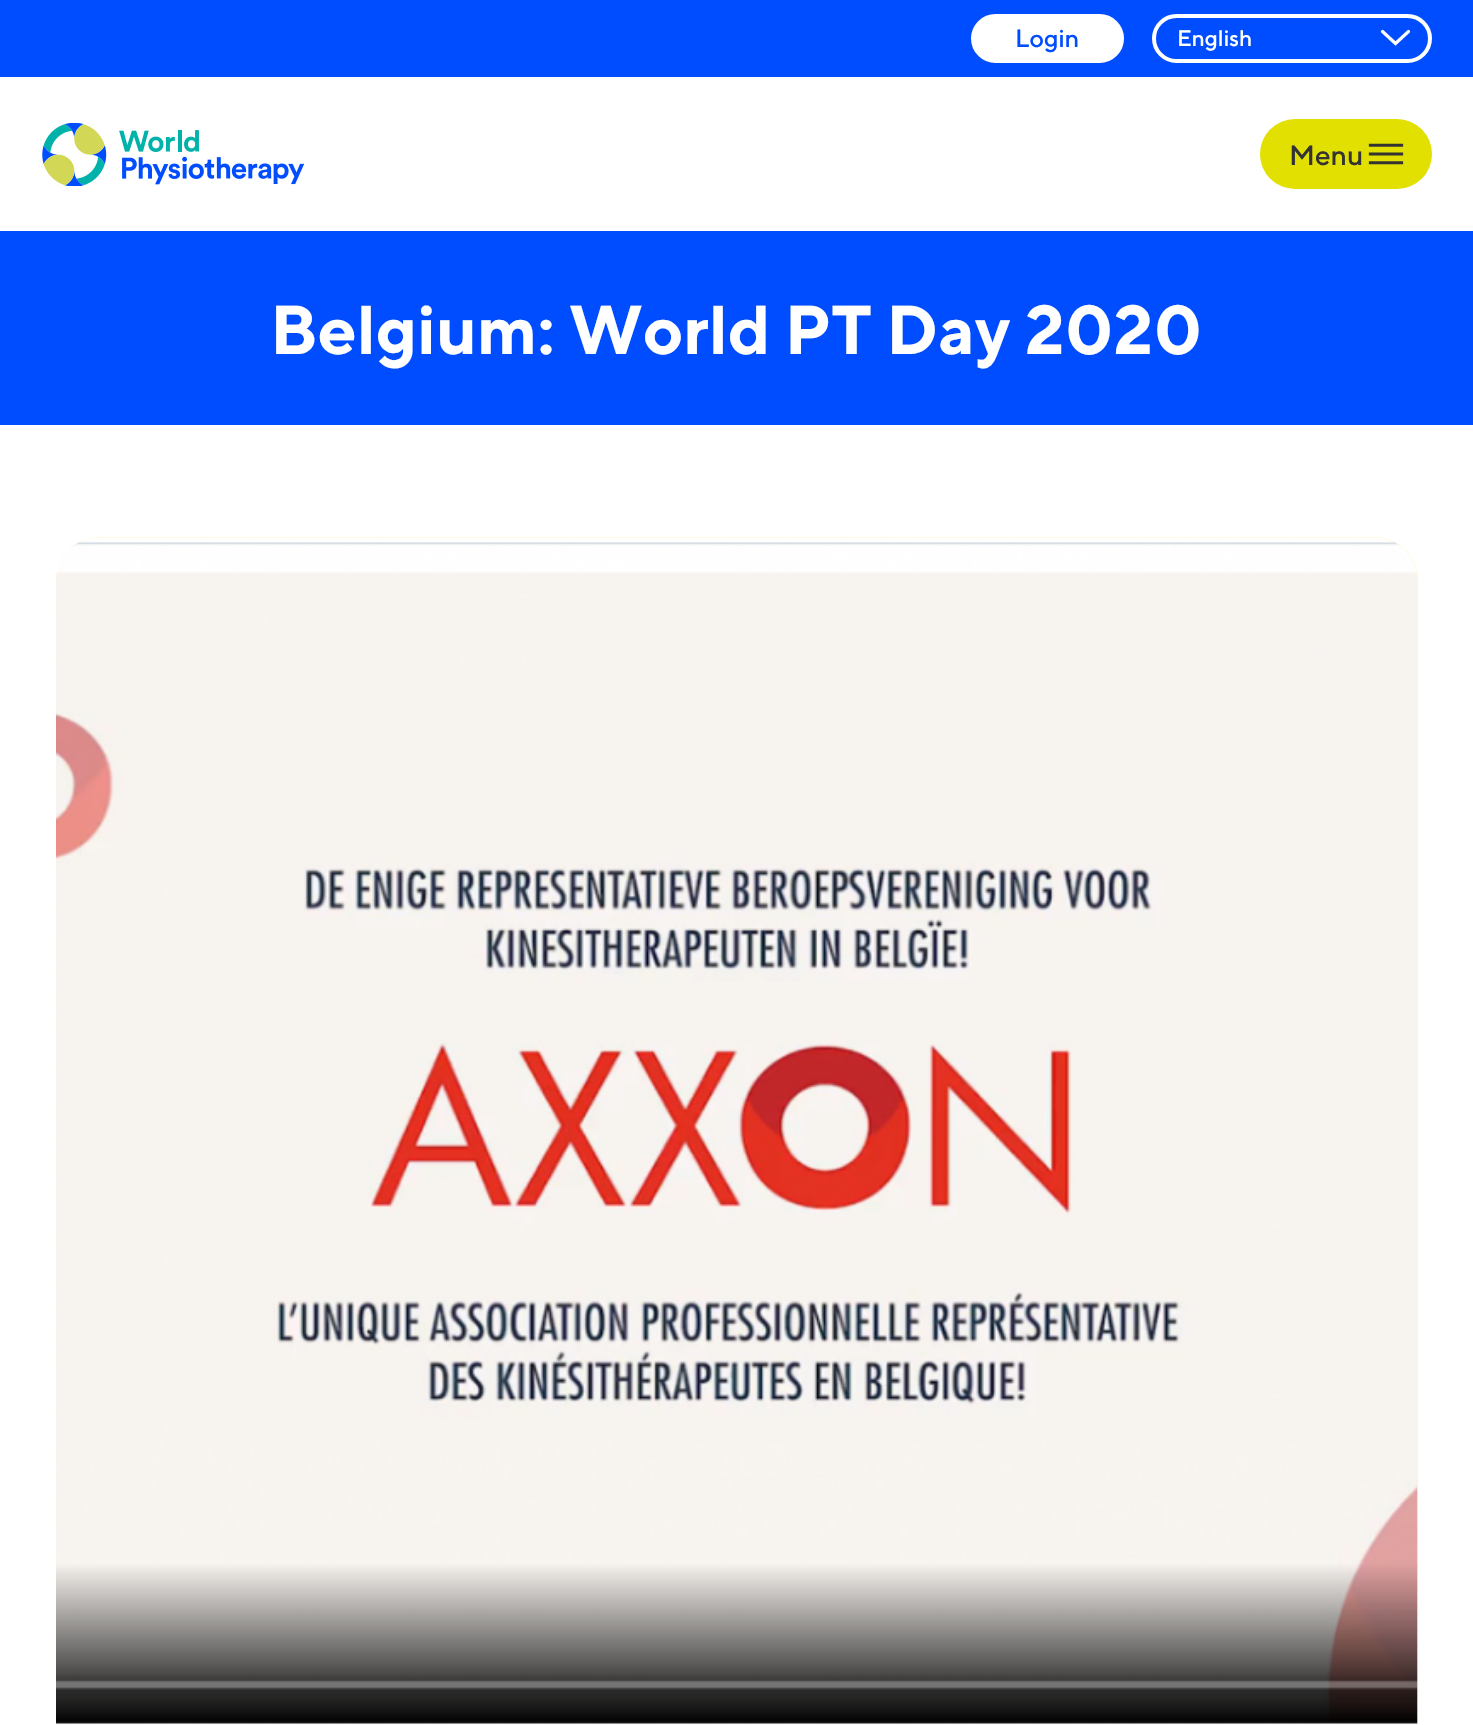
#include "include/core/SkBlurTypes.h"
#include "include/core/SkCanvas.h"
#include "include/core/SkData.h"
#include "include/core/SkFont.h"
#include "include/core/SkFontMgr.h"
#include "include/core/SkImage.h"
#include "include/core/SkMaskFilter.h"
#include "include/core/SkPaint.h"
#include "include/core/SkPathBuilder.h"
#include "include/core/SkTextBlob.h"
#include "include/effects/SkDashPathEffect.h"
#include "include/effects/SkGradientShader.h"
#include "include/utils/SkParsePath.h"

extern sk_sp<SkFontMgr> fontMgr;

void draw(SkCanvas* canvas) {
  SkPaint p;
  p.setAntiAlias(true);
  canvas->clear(SK_ColorWHITE);
  p.setColor(SkColorSetRGB(0, 76, 255));
  canvas->drawRect(SkRect::MakeLTRB(0, 0, 1473, 77), p);
  p.setColor(SK_ColorWHITE);
  canvas->drawRoundRect(SkRect::MakeLTRB(972, 15, 1123, 62), 23.5f, 23.5f, p);
  p.setStyle(SkPaint::kStroke_Style);
  p.setStrokeWidth(2);
  canvas->drawRoundRect(SkRect::MakeLTRB(972, 15, 1123, 62), 23.5f, 23.5f, p);
  p.setStrokeWidth(3.2f);
  p.setStrokeCap(SkPaint::kRound_Cap);
  canvas->drawPath(SkPathBuilder().moveTo(1382.5f, 31.5f).lineTo(1395.5f, 43.5f).lineTo(1408.5f, 31.5f).detach(), p);
  p.setStrokeWidth(4);
  p.setStrokeCap(SkPaint::kButt_Cap);
  canvas->drawRoundRect(SkRect::MakeLTRB(1154, 16, 1430, 61), 22.5f, 22.5f, p);
  canvas->drawImageRect(SkImages::DeferredFromEncodedData(SkData::MakeFromFileName("images/1.png")), SkRect::MakeLTRB(42, 123, 305, 186), SkSamplingOptions());
  p.setStyle(SkPaint::kFill_Style);
  p.setColor(SkColorSetRGB(225, 224, 0));
  canvas->drawRoundRect(SkRect::MakeLTRB(1260, 119, 1432, 189), 35, 35, p);
  canvas->drawImageRect(SkImages::DeferredFromEncodedData(SkData::MakeFromFileName("images/2.png")), SkRect::MakeLTRB(1368, 143, 1404, 165), SkSamplingOptions());
  p.setColor(SkColorSetRGB(0, 76, 255));
  canvas->drawRect(SkRect::MakeLTRB(0, 231, 1473, 425), p);
  p.setColor(SkColorSetRGB(254, 248, 191));
  canvas->drawRoundRect(SkRect::MakeLTRB(56, 537, 1418, 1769), 44, 44, p);
  canvas->drawImageRect(SkImages::DeferredFromEncodedData(SkData::MakeFromFileName("images/3.png")), SkRect::MakeLTRB(56, 537, 1418, 1725), SkSamplingOptions());
  SkFont font1(fontMgr->matchFamilyStyle("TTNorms", SkFontStyle(500, SkFontStyle::kNormal_Width, SkFontStyle::kUpright_Slant)), 25);
  font1.setSubpixel(true);
  p.setColor(SkColorSetRGB(0, 76, 255));
  canvas->drawString("Login", 1015, 47, font1, p);
  SkFont font2(fontMgr->matchFamilyStyle("TTNorms", SkFontStyle(500, SkFontStyle::kNormal_Width, SkFontStyle::kUpright_Slant)), 22.5f);
  font2.setSubpixel(true);
  p.setColor(SK_ColorWHITE);
  canvas->drawString("English", 1177, 46, font2, p);
  SkFont font3(fontMgr->matchFamilyStyle("TTNorms", SkFontStyle(500, SkFontStyle::kNormal_Width, SkFontStyle::kUpright_Slant)), 28);
  font3.setSubpixel(true);
  p.setColor(SkColorSetRGB(51, 51, 51));
  canvas->drawString("Menu", 1289, 165, font3, p);
  SkFont font4(fontMgr->matchFamilyStyle("TTNorms", SkFontStyle::Bold()), 68.75f);
  font4.setSubpixel(true);
  p.setColor(SK_ColorWHITE);
  canvas->drawString("Belgium: World PT Day 2020", 270, 354, font4, p);
}
